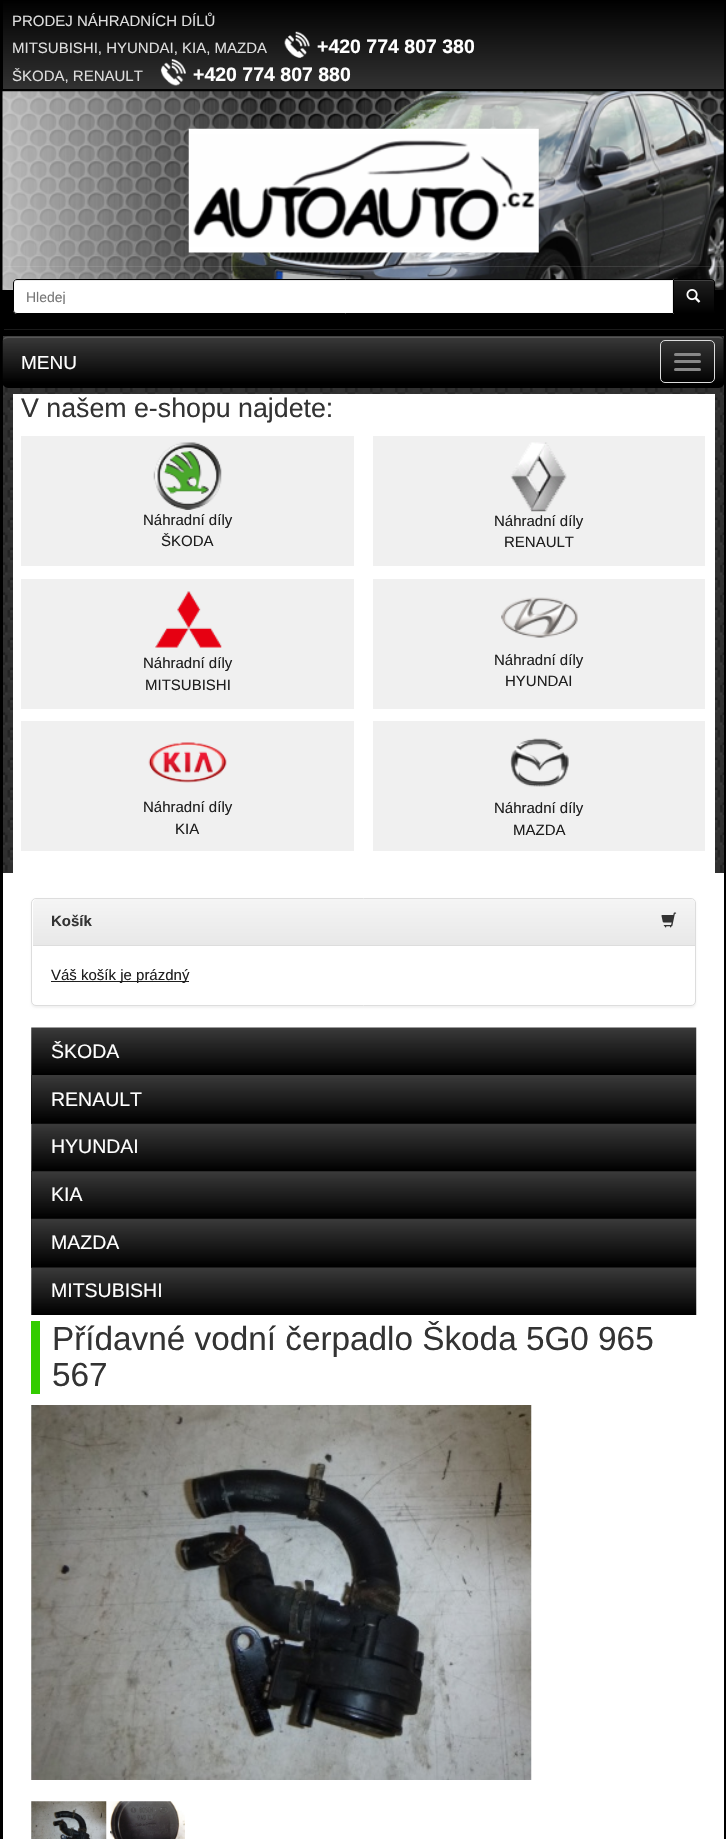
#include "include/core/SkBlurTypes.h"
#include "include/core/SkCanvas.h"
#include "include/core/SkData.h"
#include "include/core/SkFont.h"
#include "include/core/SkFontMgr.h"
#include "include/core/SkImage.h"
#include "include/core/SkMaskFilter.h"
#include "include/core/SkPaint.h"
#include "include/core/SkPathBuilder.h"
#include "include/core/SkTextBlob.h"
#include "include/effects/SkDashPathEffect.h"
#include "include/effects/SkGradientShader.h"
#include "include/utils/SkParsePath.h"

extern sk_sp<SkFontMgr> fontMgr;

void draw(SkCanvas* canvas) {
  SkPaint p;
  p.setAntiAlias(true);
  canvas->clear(SK_ColorWHITE);
  canvas->drawImageRect(SkImages::DeferredFromEncodedData(SkData::MakeFromFileName("images/1.png")), SkRect::MakeLTRB(3, 336, 724, 873), SkSamplingOptions());
  p.setColor(SK_ColorBLACK);
  canvas->drawRect(SkRect::MakeLTRB(724, 0, 726, 1839), p);
  canvas->drawRect(SkRect::MakeLTRB(0, 0, 3, 1839), p);
  {
    const SkColor colors[] = {SK_ColorBLACK, SkColorSetRGB(50, 50, 50)};
    const float stops[] = {0, 1};
    const SkPoint ends[] = {{363, 0}, {363, 89}};
    p.setShader(SkGradientShader::MakeLinear(ends, colors, stops, 2, SkTileMode::kClamp));
    p.setAlpha(255);
  }
  canvas->drawRect(SkRect::MakeLTRB(3, 0, 724, 89), p);
  p.setShader(nullptr);
  p.setColor(SK_ColorBLACK);
  canvas->drawRect(SkRect::MakeLTRB(3, 89, 724, 336), p);
  canvas->drawImageRect(SkImages::DeferredFromEncodedData(SkData::MakeFromFileName("images/2.png")), SkRect::MakeLTRB(284, 31, 310, 58), SkSamplingOptions());
  canvas->drawImageRect(SkImages::DeferredFromEncodedData(SkData::MakeFromFileName("images/3.png")), SkRect::MakeLTRB(160, 59, 186, 86), SkSamplingOptions());
  canvas->drawImageRect(SkImages::DeferredFromEncodedData(SkData::MakeFromFileName("images/4.png")), SkRect::MakeLTRB(2, 91, 724, 290), SkSamplingOptions());
  canvas->drawImageRect(SkImages::DeferredFromEncodedData(SkData::MakeFromFileName("images/5.png")), SkRect::MakeLTRB(188, 128, 539, 253), SkSamplingOptions());
  p.setColor(SkColorSetRGB(26, 26, 26));
  canvas->drawPath(SkPathBuilder().moveTo(4, 329).lineTo(4, 330).lineTo(724, 330).lineTo(724, 266).lineTo(724, 329).close().detach(), p);
  p.setColor(SkColorSetARGB(26, 255, 255, 255));
  canvas->drawRect(SkRect::MakeLTRB(4, 266, 724, 267), p);
  canvas->save();
  canvas->clipPath(SkPathBuilder().moveTo(673, 279).lineTo(711, 279).cubicTo(713, 279, 715, 281, 715, 283).lineTo(715, 311).cubicTo(715, 313, 713, 315, 711, 315).lineTo(673, 315).close().detach(), true);
  {
    const SkColor colors[] = {SkColorSetRGB(31, 31, 31), SK_ColorBLACK};
    const float stops[] = {0, 1};
    const SkPoint ends[] = {{694, 280}, {694, 314}};
    p.setShader(SkGradientShader::MakeLinear(ends, colors, stops, 2, SkTileMode::kClamp));
    p.setAlpha(255);
  }
  canvas->drawRect(SkRect::MakeLTRB(674, 280, 715, 314), p);
  canvas->restore();
  p.setShader(nullptr);
  p.setColor(SkColorSetRGB(65, 65, 65));
  canvas->drawPath(SkPathBuilder().moveTo(674, 281).lineTo(711, 281).cubicTo(713, 281, 714, 282, 714, 284).lineTo(714, 282).cubicTo(714, 281, 713, 280, 712, 280).lineTo(674, 280).close().detach(), p);
  p.setStyle(SkPaint::kStroke_Style);
  p.setStrokeWidth(1);
  p.setColor(SK_ColorBLACK);
  canvas->drawPath(SkPathBuilder().moveTo(673.5f, 279.5f).lineTo(711, 279.5f).cubicTo(713, 279.5f, 714.5f, 281, 714.5f, 283).lineTo(714.5f, 311).cubicTo(714.5f, 313, 713, 314.5f, 711, 314.5f).lineTo(673.5f, 314.5f).close().detach(), p);
  p.setStyle(SkPaint::kFill_Style);
  p.setColor(SK_ColorWHITE);
  canvas->drawPath(SkPathBuilder().moveTo(17, 279).lineTo(674, 279).lineTo(674, 314).lineTo(17, 314).cubicTo(15, 314, 13, 312, 13, 310).lineTo(13, 283).cubicTo(13, 281, 15, 279, 17, 279).close().detach(), p);
  p.setColor(SkColorSetRGB(236, 236, 236));
  canvas->drawPath(SkPathBuilder().moveTo(16, 281).lineTo(672, 281).lineTo(672, 313).lineTo(673, 313).lineTo(673, 280).lineTo(16, 280).cubicTo(15, 280, 14, 281, 14, 282).lineTo(14, 284).cubicTo(14, 282, 15, 281, 16, 281).close().detach(), p);
  p.setStyle(SkPaint::kStroke_Style);
  p.setColor(SK_ColorBLACK);
  canvas->drawPath(SkPathBuilder().moveTo(17, 279.5f).lineTo(673.5f, 279.5f).lineTo(673.5f, 313.5f).lineTo(17, 313.5f).cubicTo(15, 313.5f, 13.5f, 312, 13.5f, 310).lineTo(13.5f, 283).cubicTo(13.5f, 281, 15, 279.5f, 17, 279.5f).close().detach(), p);
  canvas->drawImageRect(SkImages::DeferredFromEncodedData(SkData::MakeFromFileName("images/6.png")), SkRect::MakeLTRB(686, 289, 701, 303), SkSamplingOptions());
  p.setStyle(SkPaint::kFill_Style);
  canvas->drawRoundRect(SkRect::MakeLTRB(3, 336, 724, 388), 5, 5, p);
  canvas->drawImageRect(SkImages::DeferredFromEncodedData(SkData::MakeFromFileName("images/7.png")), SkRect::MakeLTRB(2, 336, 724, 386), SkSamplingOptions());
  p.setColor(SkColorSetARGB(38, 255, 255, 255));
  canvas->drawPath(SkPathBuilder().moveTo(8, 338).lineTo(719, 338).lineTo(723, 339).lineTo(724, 341).cubicTo(723, 338, 721, 336, 719, 336).lineTo(8, 336).cubicTo(5, 336, 3, 338, 3, 340).cubicTo(4, 339, 6, 338, 8, 338).close().detach(), p);
  p.setStyle(SkPaint::kStroke_Style);
  p.setColor(SkColorSetRGB(221, 221, 221));
  canvas->drawRoundRect(SkRect::MakeLTRB(660.5f, 340.5f, 714.5f, 382.5f), 4.5f, 4.5f, p);
  p.setStyle(SkPaint::kFill_Style);
  p.setColor(SkColorSetRGB(136, 136, 136));
  canvas->drawRoundRect(SkRect::MakeLTRB(674, 353, 701, 356), 1.5f, 1.5f, p);
  canvas->drawRoundRect(SkRect::MakeLTRB(674, 360, 701, 363), 1.5f, 1.5f, p);
  canvas->drawRoundRect(SkRect::MakeLTRB(674, 368, 701, 371), 1.5f, 1.5f, p);
  p.setColor(SK_ColorWHITE);
  canvas->drawRect(SkRect::MakeLTRB(13, 394, 715, 873), p);
  p.setColor(SkColorSetRGB(240, 240, 240));
  canvas->drawRect(SkRect::MakeLTRB(21, 436, 354, 566), p);
  canvas->drawImageRect(SkImages::DeferredFromEncodedData(SkData::MakeFromFileName("images/8.png")), SkRect::MakeLTRB(153, 442, 222, 510), SkSamplingOptions());
  canvas->drawRect(SkRect::MakeLTRB(373, 436, 705, 566), p);
  canvas->drawImageRect(SkImages::DeferredFromEncodedData(SkData::MakeFromFileName("images/9.png")), SkRect::MakeLTRB(510, 442, 567, 512), SkSamplingOptions());
  canvas->drawRect(SkRect::MakeLTRB(21, 579, 354, 709), p);
  canvas->drawImageRect(SkImages::DeferredFromEncodedData(SkData::MakeFromFileName("images/10.png")), SkRect::MakeLTRB(155, 591, 222, 648), SkSamplingOptions());
  canvas->drawRect(SkRect::MakeLTRB(373, 579, 705, 709), p);
  canvas->drawImageRect(SkImages::DeferredFromEncodedData(SkData::MakeFromFileName("images/11.png")), SkRect::MakeLTRB(501, 597, 578, 638), SkSamplingOptions());
  canvas->drawRect(SkRect::MakeLTRB(21, 721, 354, 851), p);
  canvas->drawImageRect(SkImages::DeferredFromEncodedData(SkData::MakeFromFileName("images/12.png")), SkRect::MakeLTRB(148, 742, 227, 783), SkSamplingOptions());
  canvas->drawRect(SkRect::MakeLTRB(373, 721, 705, 851), p);
  canvas->drawImageRect(SkImages::DeferredFromEncodedData(SkData::MakeFromFileName("images/13.png")), SkRect::MakeLTRB(510, 738, 569, 787), SkSamplingOptions());
  p.setColor(SkColorSetARGB(13, 0, 0, 0));
  p.setMaskFilter(SkMaskFilter::MakeBlur(kNormal_SkBlurStyle, 1));
  canvas->drawRoundRect(SkRect::MakeLTRB(31, 899, 696, 1008), 5, 5, p);
  p.setMaskFilter(nullptr);
  p.setColor(SK_ColorWHITE);
  canvas->drawRoundRect(SkRect::MakeLTRB(31.5f, 898.5f, 695.5f, 1005.5f), 4.5f, 4.5f, p);
  p.setStyle(SkPaint::kStroke_Style);
  p.setColor(SkColorSetRGB(221, 221, 221));
  canvas->drawRoundRect(SkRect::MakeLTRB(31.5f, 898.5f, 695.5f, 1005.5f), 4.5f, 4.5f, p);
  p.setStyle(SkPaint::kFill_Style);
  {
    const SkColor colors[] = {SkColorSetRGB(245, 245, 245), SkColorSetRGB(232, 232, 232)};
    const float stops[] = {0, 1};
    const SkPoint ends[] = {{364, 899}, {364, 945}};
    p.setShader(SkGradientShader::MakeLinear(ends, colors, stops, 2, SkTileMode::kClamp));
    p.setAlpha(255);
  }
  canvas->drawPath(SkPathBuilder().moveTo(37, 899).lineTo(691, 899).cubicTo(693, 899, 695, 901, 695, 903).lineTo(695, 945).lineTo(33, 945).lineTo(33, 903).cubicTo(33, 901, 35, 899, 37, 899).close().detach(), p);
  p.setShader(nullptr);
  p.setColor(SkColorSetRGB(221, 221, 221));
  canvas->drawRect(SkRect::MakeLTRB(33, 945, 695, 946), p);
  canvas->drawImageRect(SkImages::DeferredFromEncodedData(SkData::MakeFromFileName("images/14.png")), SkRect::MakeLTRB(661, 912, 677, 928), SkSamplingOptions());
  p.setColor(SkColorSetRGB(31, 31, 31));
  canvas->drawRect(SkRect::MakeLTRB(51, 981, 189, 982), p);
  canvas->drawImageRect(SkImages::DeferredFromEncodedData(SkData::MakeFromFileName("images/15.png")), SkRect::MakeLTRB(31, 1027, 697, 1075), SkSamplingOptions());
  p.setColor(SK_ColorBLACK);
  canvas->drawRect(SkRect::MakeLTRB(31, 1075, 696, 1124), p);
  canvas->drawImageRect(SkImages::DeferredFromEncodedData(SkData::MakeFromFileName("images/16.png")), SkRect::MakeLTRB(31, 1075, 697, 1124), SkSamplingOptions());
  canvas->drawImageRect(SkImages::DeferredFromEncodedData(SkData::MakeFromFileName("images/17.png")), SkRect::MakeLTRB(31, 1123, 697, 1172), SkSamplingOptions());
  canvas->drawRect(SkRect::MakeLTRB(31, 1171, 696, 1268), p);
  canvas->drawImageRect(SkImages::DeferredFromEncodedData(SkData::MakeFromFileName("images/18.png")), SkRect::MakeLTRB(31, 1171, 697, 1219), SkSamplingOptions());
  canvas->drawImageRect(SkImages::DeferredFromEncodedData(SkData::MakeFromFileName("images/19.png")), SkRect::MakeLTRB(31, 1218, 697, 1268), SkSamplingOptions());
  canvas->drawImageRect(SkImages::DeferredFromEncodedData(SkData::MakeFromFileName("images/20.png")), SkRect::MakeLTRB(31, 1267, 697, 1315), SkSamplingOptions());
  p.setColor(SkColorSetRGB(51, 204, 0));
  canvas->drawRect(SkRect::MakeLTRB(31, 1321, 40, 1394), p);
  canvas->drawImageRect(SkImages::DeferredFromEncodedData(SkData::MakeFromFileName("images/21.png")), SkRect::MakeLTRB(31, 1405, 532, 1780), SkSamplingOptions());
  canvas->drawImageRect(SkImages::DeferredFromEncodedData(SkData::MakeFromFileName("images/22.png")), SkRect::MakeLTRB(31, 1801, 107, 1839), SkSamplingOptions());
  canvas->drawImageRect(SkImages::DeferredFromEncodedData(SkData::MakeFromFileName("images/23.png")), SkRect::MakeLTRB(110, 1801, 185, 1839), SkSamplingOptions());
  SkFont font1(fontMgr->matchFamilyStyle("Liberation Sans", SkFontStyle::Normal()), 15);
  font1.setSubpixel(true);
  p.setColor(SkColorSetRGB(221, 221, 221));
  canvas->drawString("PRODEJ NÁHRADNÍCH DÍLŮ", 12, 26, font1, p);
  canvas->drawString("MITSUBISHI, HYUNDAI, KIA, MAZDA", 12, 53, font1, p);
  SkFont font2(fontMgr->matchFamilyStyle("Liberation Sans", SkFontStyle::Bold()), 19.5f);
  font2.setSubpixel(true);
  p.setColor(SK_ColorWHITE);
  canvas->drawString("+420 774 807 380", 317, 53, font2, p);
  p.setColor(SkColorSetRGB(221, 221, 221));
  canvas->drawString("ŠKODA, RENAULT", 12, 81, font1, p);
  p.setColor(SK_ColorWHITE);
  canvas->drawString("+420 774 807 880", 193, 81, font2, p);
  canvas->save();
  canvas->clipRect(SkRect::MakeLTRB(26, 289, 660, 304));
  SkFont font3(fontMgr->matchFamilyStyle("Liberation Sans", SkFontStyle::Normal()), 14);
  font3.setSubpixel(true);
  p.setColor(SkColorSetRGB(119, 119, 119));
  canvas->drawString("Hledej", 26, 302, font3, p);
  canvas->restore();
  SkFont font4(fontMgr->matchFamilyStyle("Liberation Sans", SkFontStyle::Normal()), 19);
  font4.setSubpixel(true);
  p.setColor(SK_ColorWHITE);
  canvas->drawString("MENU", 21, 369, font4, p);
  SkFont font5(fontMgr->matchFamilyStyle("Liberation Sans", SkFontStyle::Normal()), 26.75f);
  font5.setSubpixel(true);
  p.setColor(SkColorSetRGB(51, 51, 51));
  canvas->drawString("V našem e-shopu najdete:", 21, 417, font5, p);
  p.setColor(SkColorSetRGB(31, 31, 31));
  canvas->drawString("Náhradní díly", 143, 525, font1, p);
  canvas->drawString("ŠKODA", 161, 546, font1, p);
  canvas->drawString("Náhradní díly", 494, 526, font1, p);
  canvas->drawString("RENAULT", 504, 547, font1, p);
  canvas->drawString("Náhradní díly", 143, 668, font1, p);
  canvas->drawString("MITSUBISHI", 145, 690, font1, p);
  canvas->drawString("Náhradní díly", 494, 665, font1, p);
  canvas->drawString("HYUNDAI", 505, 686, font1, p);
  canvas->drawString("Náhradní díly", 143, 812, font1, p);
  canvas->drawString("KIA", 175, 834, font1, p);
  canvas->drawString("Náhradní díly", 494, 813, font1, p);
  canvas->drawString("MAZDA", 513, 835, font1, p);
  SkFont font6(fontMgr->matchFamilyStyle("Liberation Sans", SkFontStyle::Bold()), 15);
  font6.setSubpixel(true);
  p.setColor(SkColorSetRGB(51, 51, 51));
  canvas->drawString("Košík", 51, 926, font6, p);
  p.setColor(SkColorSetRGB(31, 31, 31));
  canvas->drawString("Váš košík je prázdný", 51, 980, font1, p);
  SkFont font7(fontMgr->matchFamilyStyle("Liberation Sans", SkFontStyle::Normal()), 19.5f);
  font7.setSubpixel(true);
  p.setColor(SK_ColorWHITE);
  canvas->drawString("ŠKODA", 51, 1058, font7, p);
  canvas->drawString("RENAULT", 51, 1106, font7, p);
  canvas->drawString("HYUNDAI", 51, 1153, font7, p);
  canvas->drawString("KIA", 51, 1201, font7, p);
  canvas->drawString("MAZDA", 51, 1249, font7, p);
  canvas->drawString("MITSUBISHI", 51, 1297, font7, p);
  SkFont font8(fontMgr->matchFamilyStyle("Liberation Sans", SkFontStyle::Normal()), 33.3f);
  font8.setSubpixel(true);
  p.setColor(SkColorSetRGB(51, 51, 51));
  canvas->drawString("Přídavné vodní čerpadlo Škoda 5G0 965", 52, 1350, font8, p);
  canvas->drawString("567", 52, 1386, font8, p);
}
